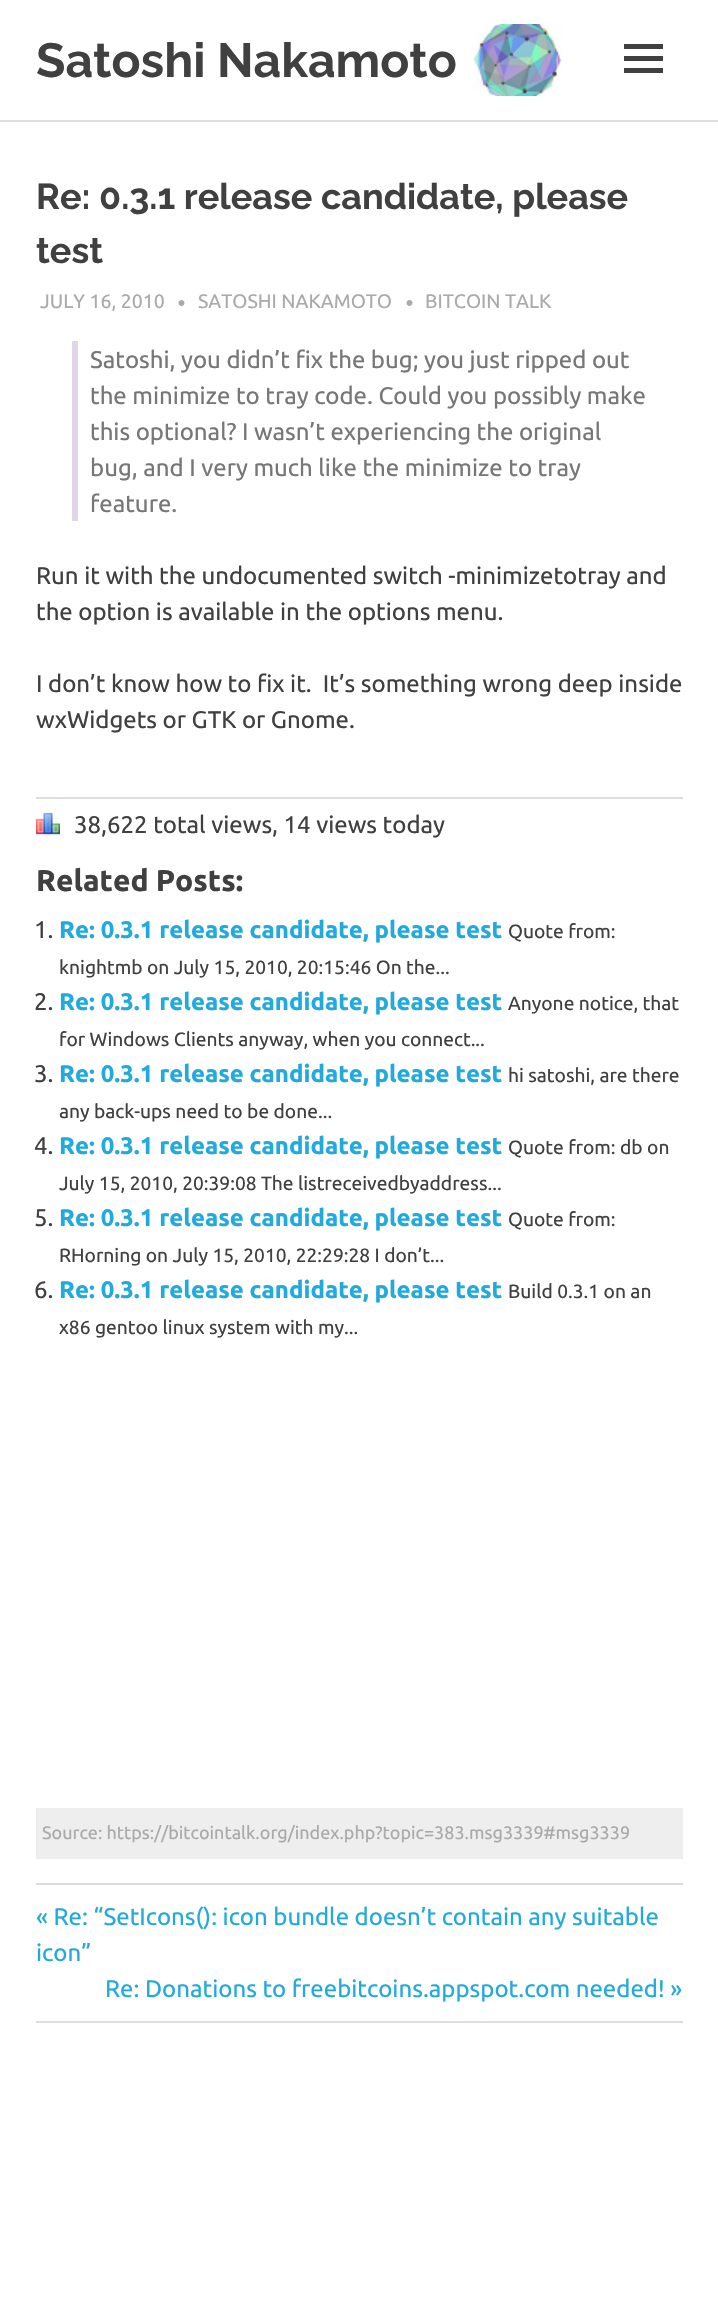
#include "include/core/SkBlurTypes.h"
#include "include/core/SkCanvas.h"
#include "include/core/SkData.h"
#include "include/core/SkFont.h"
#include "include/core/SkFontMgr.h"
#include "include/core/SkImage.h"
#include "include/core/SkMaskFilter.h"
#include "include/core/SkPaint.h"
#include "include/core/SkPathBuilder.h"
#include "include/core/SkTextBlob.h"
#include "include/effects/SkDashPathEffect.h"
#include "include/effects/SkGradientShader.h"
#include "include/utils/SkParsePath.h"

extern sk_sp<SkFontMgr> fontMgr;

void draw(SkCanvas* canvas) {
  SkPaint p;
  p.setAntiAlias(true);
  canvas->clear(SK_ColorWHITE);
  p.setColor(SkColorSetRGB(221, 221, 221));
  canvas->drawRect(SkRect::MakeLTRB(0, 120, 718, 122), p);
  canvas->drawImageRect(SkImages::DeferredFromEncodedData(SkData::MakeFromFileName("images/1.png")), SkRect::MakeLTRB(473, 24, 563, 96), SkSamplingOptions());
  p.setColor(SkColorSetRGB(64, 64, 64));
  canvas->drawPath(SkPathBuilder().moveTo(624, 73).lineTo(624, 68).lineTo(663, 68).lineTo(663, 73).close().moveTo(624, 44).lineTo(663, 44).lineTo(663, 49).lineTo(624, 49).close().moveTo(624, 61).lineTo(624, 56).lineTo(663, 56).lineTo(663, 61).close().detach(), p);
  canvas->drawImageRect(SkImages::DeferredFromEncodedData(SkData::MakeFromFileName("images/2.png")), SkRect::MakeLTRB(178, 300, 185, 306), SkSamplingOptions());
  canvas->drawImageRect(SkImages::DeferredFromEncodedData(SkData::MakeFromFileName("images/2.png")), SkRect::MakeLTRB(406, 300, 413, 306), SkSamplingOptions());
  p.setColor(SkColorSetRGB(225, 213, 232));
  canvas->drawRect(SkRect::MakeLTRB(72, 341, 78, 521), p);
  canvas->drawImageRect(SkImages::DeferredFromEncodedData(SkData::MakeFromFileName("images/3.png")), SkRect::MakeLTRB(36, 812, 60, 835), SkSamplingOptions());
  p.setColor(SkColorSetRGB(221, 221, 221));
  canvas->drawRect(SkRect::MakeLTRB(36, 797, 683, 799), p);
  p.setColor(SkColorSetRGB(238, 238, 238));
  canvas->drawRect(SkRect::MakeLTRB(36, 1808, 683, 1859), p);
  p.setColor(SkColorSetRGB(221, 221, 221));
  canvas->drawRect(SkRect::MakeLTRB(36, 1883, 683, 1885), p);
  canvas->drawRect(SkRect::MakeLTRB(36, 2021, 683, 2023), p);
  SkFont font1(fontMgr->matchFamilyStyle("Raleway", SkFontStyle::Bold()), 48);
  font1.setSubpixel(true);
  p.setColor(SkColorSetRGB(64, 64, 64));
  canvas->drawString("Satoshi Nakamoto", 36, 77, font1, p);
  SkFont font2(fontMgr->matchFamilyStyle("Raleway", SkFontStyle::Bold()), 36);
  font2.setSubpixel(true);
  canvas->drawString("Re: 0.3.1 release candidate, please", 36, 209, font2, p);
  canvas->drawString("test", 36, 263, font2, p);
  SkFont font3(fontMgr->matchFamilyStyle("Ubuntu", SkFontStyle::Normal()), 19.5f);
  font3.setSubpixel(true);
  p.setColor(SkColorSetRGB(170, 170, 170));
  canvas->drawString("JULY 16, 2010", 40, 308, font3, p);
  canvas->drawString("SATOSHI NAKAMOTO", 198, 308, font3, p);
  canvas->drawString("BITCOIN TALK", 425, 308, font3, p);
  SkFont font4(fontMgr->matchFamilyStyle("Ubuntu", SkFontStyle::Normal()), 24);
  font4.setSubpixel(true);
  p.setColor(SkColorSetRGB(119, 119, 119));
  canvas->drawString("Satoshi, you didn’t fix the bug; you just ripped out", 90, 368, font4, p);
  canvas->drawString("the minimize to tray code. Could you possibly make", 90, 404, font4, p);
  canvas->drawString("this optional? I wasn’t experiencing the original", 90, 440, font4, p);
  canvas->drawString("bug, and I very much like the minimize to tray", 90, 476, font4, p);
  canvas->drawString("feature.", 90, 512, font4, p);
  p.setColor(SkColorSetRGB(64, 64, 64));
  canvas->drawString("Run it with the undocumented switch -minimizetotray and", 36, 584, font4, p);
  canvas->drawString("the option is available in the options menu.", 36, 620, font4, p);
  canvas->drawString("I don’t know how to fix it.  It’s something wrong deep inside", 36, 692, font4, p);
  canvas->drawString("wxWidgets or GTK or Gnome.", 36, 728, font4, p);
  canvas->drawString("38,622 total views, 14 views today", 74, 833, font4, p);
  SkFont font5(fontMgr->matchFamilyStyle("Ubuntu", SkFontStyle::Bold()), 30);
  font5.setSubpixel(true);
  canvas->drawString("Related Posts:", 36, 891, font5, p);
  canvas->drawString("1.", 34, 938, font4, p);
  SkFont font6(fontMgr->matchFamilyStyle("Ubuntu", SkFontStyle::Bold()), 24);
  font6.setSubpixel(true);
  p.setColor(SkColorSetRGB(34, 170, 221));
  canvas->drawString("Re: 0.3.1 release candidate, please test", 59, 938, font6, p);
  SkFont font7(fontMgr->matchFamilyStyle("Ubuntu", SkFontStyle::Normal()), 19.2f);
  font7.setSubpixel(true);
  p.setColor(SkColorSetRGB(64, 64, 64));
  canvas->drawString("Quote from:", 508, 938, font7, p);
  canvas->drawString("knightmb on July 15, 2010, 20:15:46 On the...", 59, 974, font7, p);
  canvas->drawString("2.", 34, 1010, font4, p);
  p.setColor(SkColorSetRGB(34, 170, 221));
  canvas->drawString("Re: 0.3.1 release candidate, please test", 59, 1010, font6, p);
  p.setColor(SkColorSetRGB(64, 64, 64));
  canvas->drawString("Anyone notice, that", 508, 1010, font7, p);
  canvas->drawString("for Windows Clients anyway, when you connect...", 59, 1046, font7, p);
  canvas->drawString("3.", 34, 1082, font4, p);
  p.setColor(SkColorSetRGB(34, 170, 221));
  canvas->drawString("Re: 0.3.1 release candidate, please test", 59, 1082, font6, p);
  p.setColor(SkColorSetRGB(64, 64, 64));
  canvas->drawString("hi satoshi, are there", 508, 1082, font7, p);
  canvas->drawString("any back-ups need to be done...", 59, 1118, font7, p);
  canvas->drawString("4.", 34, 1154, font4, p);
  p.setColor(SkColorSetRGB(34, 170, 221));
  canvas->drawString("Re: 0.3.1 release candidate, please test", 59, 1154, font6, p);
  p.setColor(SkColorSetRGB(64, 64, 64));
  canvas->drawString("Quote from: db on", 508, 1154, font7, p);
  canvas->drawString("July 15, 2010, 20:39:08 The listreceivedbyaddress...", 59, 1190, font7, p);
  canvas->drawString("5.", 34, 1226, font4, p);
  p.setColor(SkColorSetRGB(34, 170, 221));
  canvas->drawString("Re: 0.3.1 release candidate, please test", 59, 1226, font6, p);
  p.setColor(SkColorSetRGB(64, 64, 64));
  canvas->drawString("Quote from:", 508, 1226, font7, p);
  canvas->drawString("RHorning on July 15, 2010, 22:29:28 I don’t...", 59, 1262, font7, p);
  canvas->drawString("6.", 34, 1298, font4, p);
  p.setColor(SkColorSetRGB(34, 170, 221));
  canvas->drawString("Re: 0.3.1 release candidate, please test", 59, 1298, font6, p);
  p.setColor(SkColorSetRGB(64, 64, 64));
  canvas->drawString("Build 0.3.1 on an", 508, 1298, font7, p);
  canvas->drawString("x86 gentoo linux system with my...", 59, 1334, font7, p);
  SkFont font8(fontMgr->matchFamilyStyle("Ubuntu", SkFontStyle::Normal()), 18);
  font8.setSubpixel(true);
  p.setColor(SkColorSetRGB(170, 170, 170));
  canvas->drawString("Source: https://bitcointalk.org/index.php?topic=383.msg3339#msg3339", 42, 1839, font8, p);
  p.setColor(SkColorSetRGB(34, 170, 221));
  canvas->drawString("« Re: “SetIcons(): icon bundle doesn’t contain any suitable", 36, 1925, font4, p);
  canvas->drawString("icon”", 36, 1961, font4, p);
  canvas->drawString("Re: Donations to freebitcoins.appspot.com needed! »", 105, 1997, font4, p);
}
